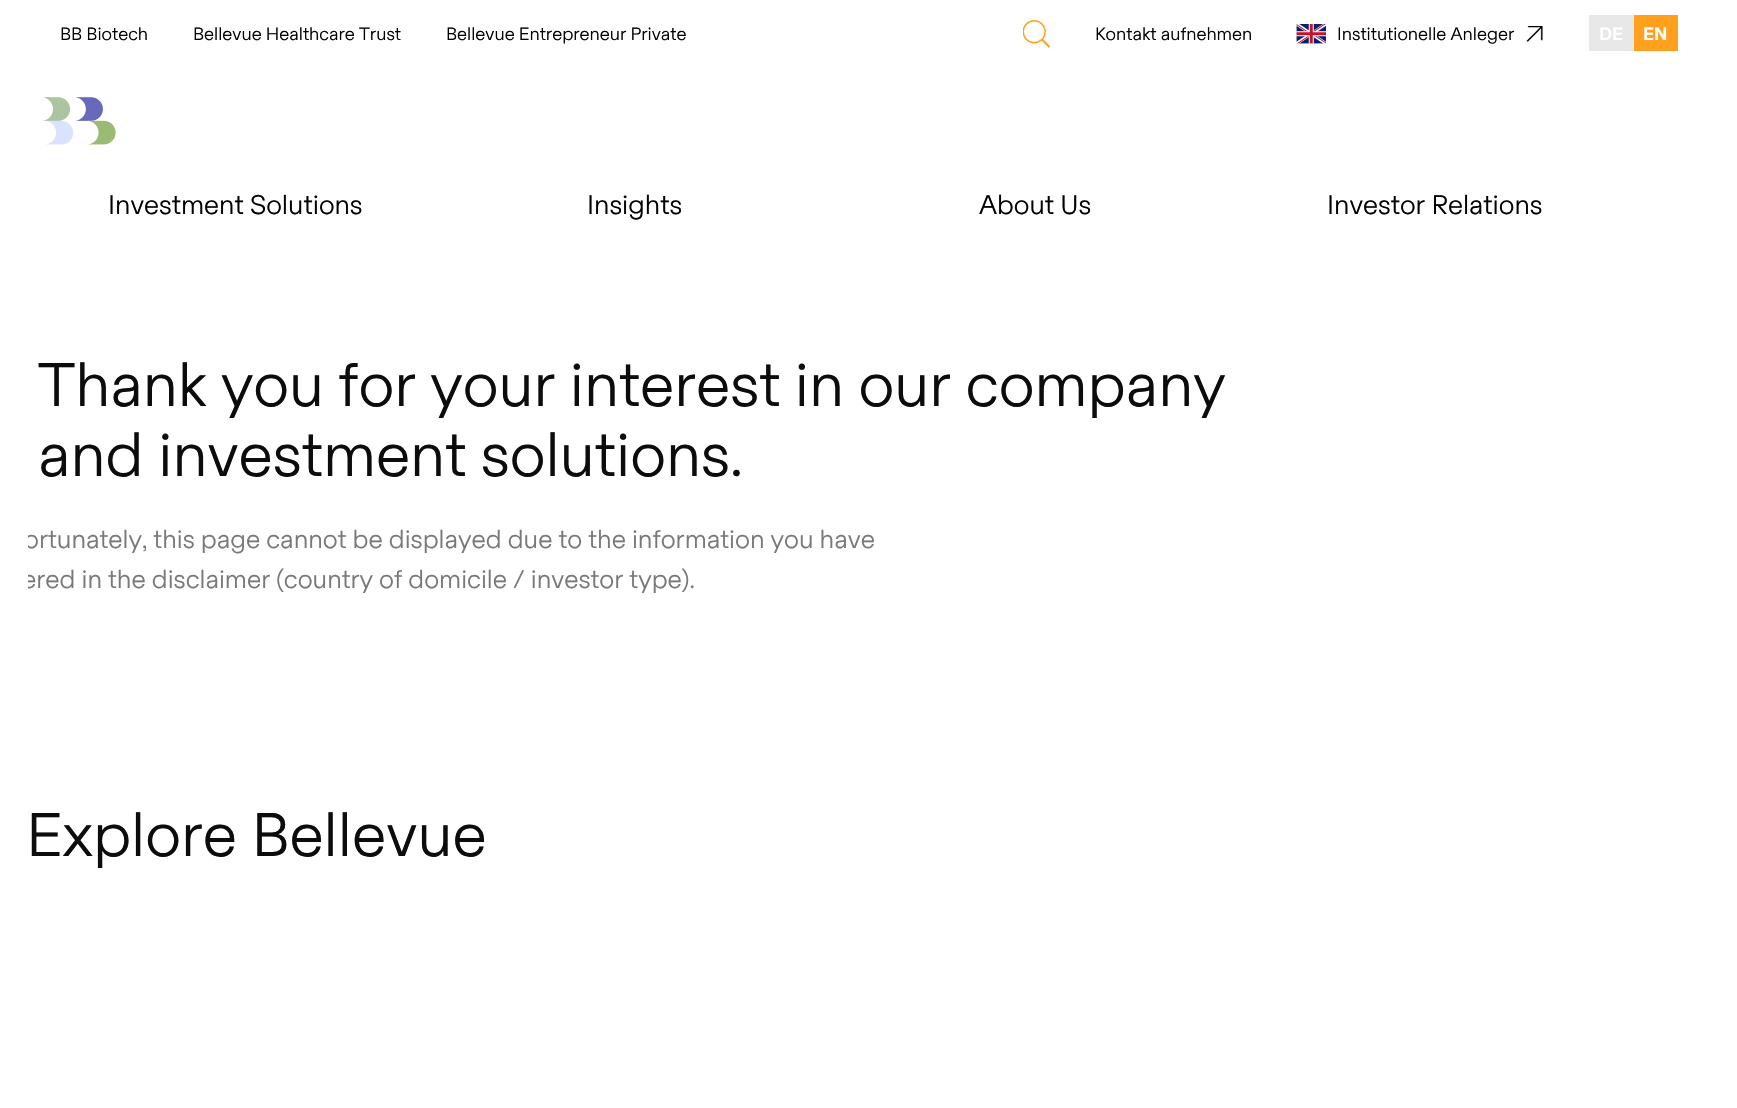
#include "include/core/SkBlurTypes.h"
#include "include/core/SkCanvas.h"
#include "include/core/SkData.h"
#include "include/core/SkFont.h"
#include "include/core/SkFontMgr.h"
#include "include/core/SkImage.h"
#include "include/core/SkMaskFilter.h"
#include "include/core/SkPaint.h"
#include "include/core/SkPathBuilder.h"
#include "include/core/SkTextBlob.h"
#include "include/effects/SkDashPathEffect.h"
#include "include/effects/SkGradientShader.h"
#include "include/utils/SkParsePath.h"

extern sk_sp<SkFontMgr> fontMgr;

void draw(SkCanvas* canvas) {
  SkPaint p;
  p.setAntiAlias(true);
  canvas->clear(SK_ColorWHITE);
  canvas->drawImageRect(SkImages::DeferredFromEncodedData(SkData::MakeFromFileName("images/1.png")), SkRect::MakeLTRB(1023, 20, 1050, 48), SkSamplingOptions());
  canvas->drawImageRect(SkImages::DeferredFromEncodedData(SkData::MakeFromFileName("images/2.png")), SkRect::MakeLTRB(1296, 24, 1326, 44), SkSamplingOptions());
  canvas->drawImageRect(SkImages::DeferredFromEncodedData(SkData::MakeFromFileName("images/3.png")), SkRect::MakeLTRB(1526, 26, 1543, 42), SkSamplingOptions());
  p.setColor(SkColorSetRGB(232, 232, 232));
  canvas->drawRect(SkRect::MakeLTRB(1589, 15, 1634, 51), p);
  p.setColor(SkColorSetRGB(255, 160, 30));
  canvas->drawRect(SkRect::MakeLTRB(1634, 15, 1678, 51), p);
  canvas->drawImageRect(SkImages::DeferredFromEncodedData(SkData::MakeFromFileName("images/4.png")), SkRect::MakeLTRB(43, 97, 116, 145), SkSamplingOptions());
  SkFont font1(fontMgr->matchFamilyStyle("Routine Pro", SkFontStyle::Normal()), 17.5f);
  font1.setSubpixel(true);
  p.setColor(SK_ColorBLACK);
  canvas->drawString("BB Biotech", 60, 40, font1, p);
  canvas->drawString("Bellevue Healthcare Trust", 193, 40, font1, p);
  canvas->drawString("Bellevue Entrepreneur Private", 446, 40, font1, p);
  canvas->drawString("Kontakt aufnehmen", 1095, 40, font1, p);
  canvas->drawString("Institutionelle Anleger", 1337, 40, font1, p);
  SkFont font2(fontMgr->matchFamilyStyle("Routine Pro", SkFontStyle::Bold()), 17.5f);
  font2.setSubpixel(true);
  p.setColor(SK_ColorWHITE);
  canvas->drawString("DE", 1599, 40, font2, p);
  canvas->drawString("EN", 1643, 40, font2, p);
  SkFont font3(fontMgr->matchFamilyStyle("Routine Pro", SkFontStyle::Normal()), 26.25f);
  font3.setSubpixel(true);
  p.setColor(SK_ColorBLACK);
  canvas->drawString("Investment Solutions", 108, 214, font3, p);
  canvas->drawString("Insights", 587, 214, font3, p);
  canvas->drawString("About Us", 979, 214, font3, p);
  canvas->drawString("Investor Relations", 1327, 214, font3, p);
  SkFont font4(fontMgr->matchFamilyStyle("Routine Pro", SkFontStyle::Normal()), 60);
  font4.setSubpixel(true);
  p.setColor(SkColorSetRGB(12, 12, 12));
  canvas->drawString("Thank you for your interest in our company", 38, 406, font4, p);
  canvas->drawString("and investment solutions.", 38, 476, font4, p);
  canvas->save();
  canvas->clipRect(SkRect::MakeLTRB(28, 519, 948, 599));
  SkFont font5(fontMgr->matchFamilyStyle("Routine Pro", SkFontStyle::Normal()), 25);
  font5.setSubpixel(true);
  p.setColor(SkColorSetRGB(120, 120, 120));
  canvas->drawString("ortunately, this page cannot be displayed due to the information you have", 24, 548, font5, p);
  canvas->drawString("ered in the disclaimer (country of domicile / investor type).", 22, 588, font5, p);
  canvas->restore();
  p.setColor(SkColorSetRGB(12, 12, 12));
  canvas->drawString("Explore Bellevue", 26, 856, font4, p);
}
